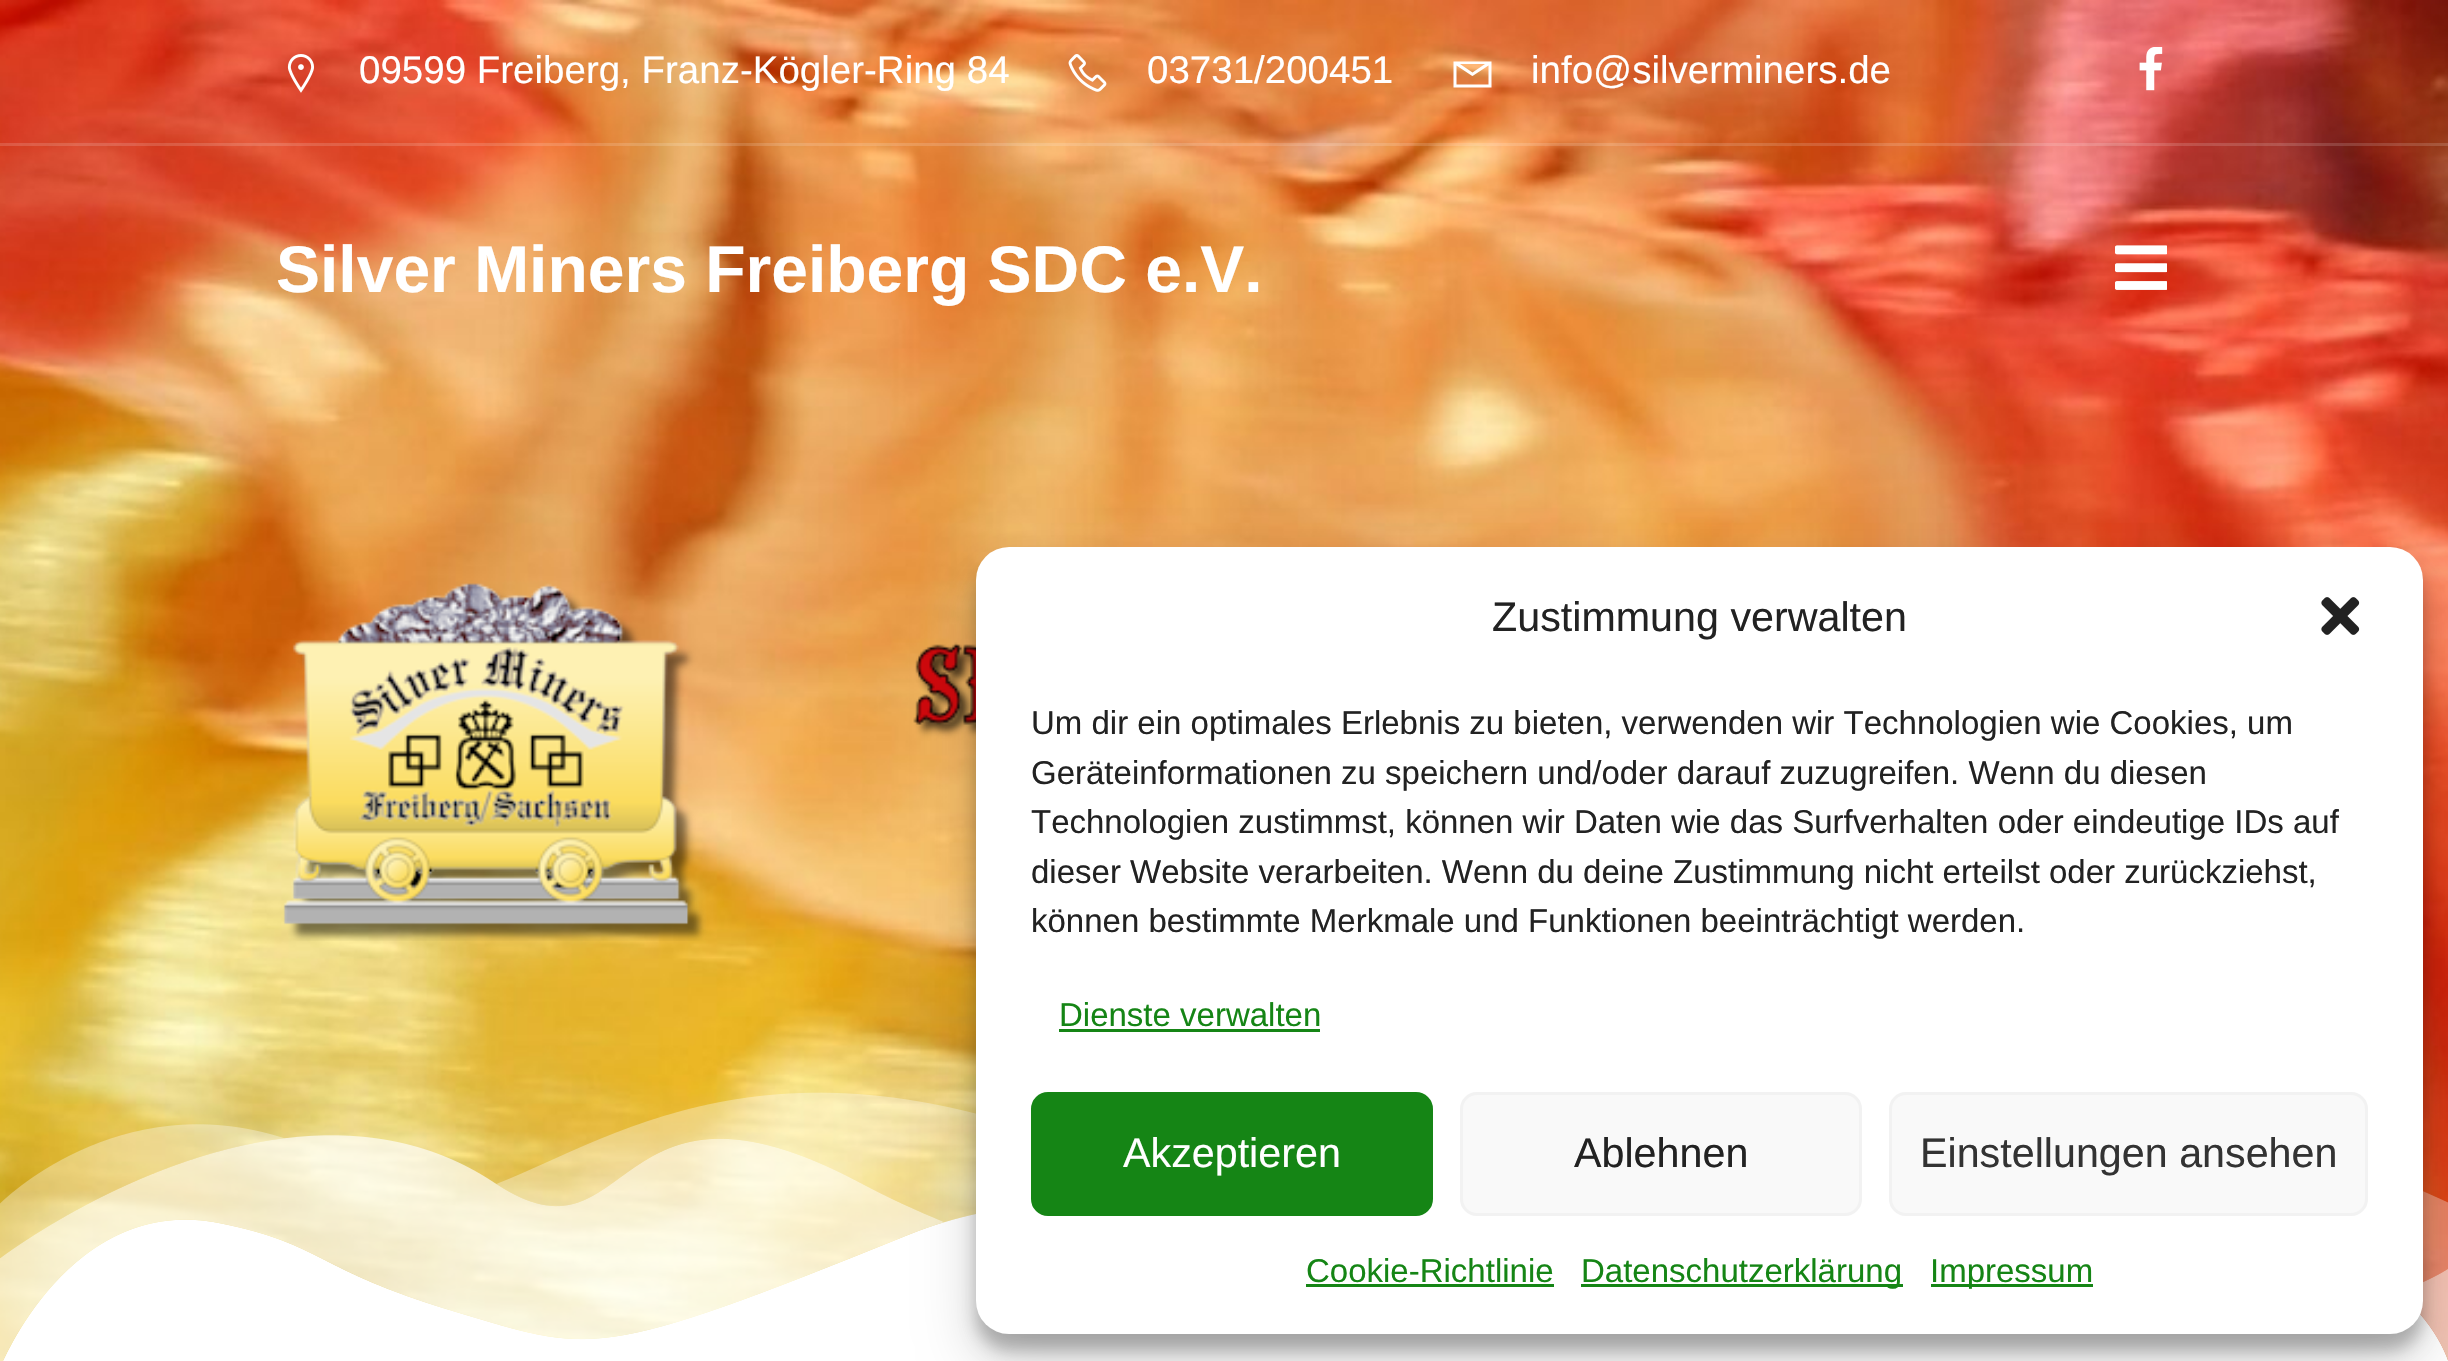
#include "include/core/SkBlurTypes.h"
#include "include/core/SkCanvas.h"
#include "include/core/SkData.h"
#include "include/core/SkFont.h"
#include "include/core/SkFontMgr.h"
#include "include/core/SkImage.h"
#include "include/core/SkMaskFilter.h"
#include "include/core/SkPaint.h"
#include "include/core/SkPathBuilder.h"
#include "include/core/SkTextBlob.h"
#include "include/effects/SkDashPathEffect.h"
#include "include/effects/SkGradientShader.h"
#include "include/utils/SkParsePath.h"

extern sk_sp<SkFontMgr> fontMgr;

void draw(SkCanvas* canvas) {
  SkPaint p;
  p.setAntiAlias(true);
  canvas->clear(SK_ColorWHITE);
  canvas->drawImageRect(SkImages::DeferredFromEncodedData(SkData::MakeFromFileName("images/1.png")), SkRect::MakeLTRB(0, 0, 2448, 1361), SkSamplingOptions());
  canvas->drawImageRect(SkImages::DeferredFromEncodedData(SkData::MakeFromFileName("images/2.png")), SkRect::MakeLTRB(283, 583, 976, 941), SkSamplingOptions());
  canvas->drawImageRect(SkImages::DeferredFromEncodedData(SkData::MakeFromFileName("images/3.png")), SkRect::MakeLTRB(0, 1092, 2448, 1361), SkSamplingOptions());
  p.setColor(SkColorSetARGB(38, 255, 255, 255));
  canvas->drawRect(SkRect::MakeLTRB(0, 143, 2448, 146), p);
  canvas->drawImageRect(SkImages::DeferredFromEncodedData(SkData::MakeFromFileName("images/4.png")), SkRect::MakeLTRB(287, 54, 314, 93), SkSamplingOptions());
  canvas->drawImageRect(SkImages::DeferredFromEncodedData(SkData::MakeFromFileName("images/5.png")), SkRect::MakeLTRB(1068, 54, 1107, 92), SkSamplingOptions());
  p.setColor(SK_ColorWHITE);
  canvas->drawPath(SkPathBuilder().moveTo(1453.5f, 61.5f).lineTo(1491.5f, 61.5f).lineTo(1491.5f, 87.5f).lineTo(1453.5f, 87.5f).close().moveTo(1460, 64).lineTo(1472.5f, 72.5f).lineTo(1485, 64).close().moveTo(1456.5f, 65.5f).lineTo(1456.5f, 84.5f).lineTo(1488.5f, 84.5f).lineTo(1488.5f, 65.5f).lineTo(1472.5f, 76).lineTo(1471.5f, 75.5f).close().detach(), p);
  canvas->drawImageRect(SkImages::DeferredFromEncodedData(SkData::MakeFromFileName("images/6.png")), SkRect::MakeLTRB(2139, 47, 2163, 91), SkSamplingOptions());
  canvas->drawImageRect(SkImages::DeferredFromEncodedData(SkData::MakeFromFileName("images/7.png")), SkRect::MakeLTRB(2115, 245, 2167, 290), SkSamplingOptions());
  p.setColor(SkColorSetARGB(59, 0, 0, 0));
  p.setMaskFilter(SkMaskFilter::MakeBlur(kNormal_SkBlurStyle, 8));
  canvas->drawRoundRect(SkRect::MakeLTRB(976, 564, 2423, 1350), 33, 33, p);
  p.setMaskFilter(nullptr);
  p.setColor(SkColorSetARGB(48, 0, 0, 0));
  p.setMaskFilter(SkMaskFilter::MakeBlur(kNormal_SkBlurStyle, 27.5f));
  canvas->drawRoundRect(SkRect::MakeLTRB(976, 575, 2423, 1361), 33, 33, p);
  p.setMaskFilter(nullptr);
  p.setColor(SK_ColorWHITE);
  canvas->drawRoundRect(SkRect::MakeLTRB(976, 547, 2423, 1334), 33, 33, p);
  canvas->drawImageRect(SkImages::DeferredFromEncodedData(SkData::MakeFromFileName("images/8.png")), SkRect::MakeLTRB(2321, 597, 2360, 635), SkSamplingOptions());
  p.setColor(SkColorSetRGB(21, 133, 21));
  canvas->drawRect(SkRect::MakeLTRB(1059, 1029, 1320, 1032), p);
  canvas->drawRoundRect(SkRect::MakeLTRB(1032.5f, 1093.5f, 1431.5f, 1214.5f), 15.5f, 15.5f, p);
  p.setStyle(SkPaint::kStroke_Style);
  p.setStrokeWidth(3);
  canvas->drawRoundRect(SkRect::MakeLTRB(1032.5f, 1093.5f, 1431.5f, 1214.5f), 15.5f, 15.5f, p);
  p.setStyle(SkPaint::kFill_Style);
  p.setColor(SkColorSetRGB(249, 249, 249));
  canvas->drawRoundRect(SkRect::MakeLTRB(1461.5f, 1093.5f, 1860.5f, 1214.5f), 15.5f, 15.5f, p);
  p.setStyle(SkPaint::kStroke_Style);
  p.setColor(SkColorSetRGB(242, 242, 242));
  canvas->drawRoundRect(SkRect::MakeLTRB(1461.5f, 1093.5f, 1860.5f, 1214.5f), 15.5f, 15.5f, p);
  p.setStyle(SkPaint::kFill_Style);
  p.setColor(SkColorSetRGB(249, 249, 249));
  canvas->drawRoundRect(SkRect::MakeLTRB(1890.5f, 1093.5f, 2366.5f, 1214.5f), 15.5f, 15.5f, p);
  p.setStyle(SkPaint::kStroke_Style);
  p.setColor(SkColorSetRGB(242, 242, 242));
  canvas->drawRoundRect(SkRect::MakeLTRB(1890.5f, 1093.5f, 2366.5f, 1214.5f), 15.5f, 15.5f, p);
  p.setStyle(SkPaint::kFill_Style);
  p.setColor(SkColorSetRGB(21, 133, 21));
  canvas->drawRect(SkRect::MakeLTRB(1306, 1284, 1554, 1287), p);
  canvas->drawRect(SkRect::MakeLTRB(1581, 1284, 1903, 1287), p);
  canvas->drawRect(SkRect::MakeLTRB(1931, 1284, 2093, 1287), p);
  SkFont font1(fontMgr->matchFamilyStyle("Liberation Sans", SkFontStyle::Normal()), 38.5f);
  font1.setSubpixel(true);
  p.setColor(SK_ColorWHITE);
  canvas->drawString("09599 Freiberg, Franz-Kögler-Ring 84", 359, 83, font1, p);
  canvas->drawString("03731/200451", 1147, 83, font1, p);
  canvas->drawString("info@silverminers.de", 1531, 83, font1, p);
  SkFont font2(fontMgr->matchFamilyStyle("Liberation Sans", SkFontStyle::Bold()), 66);
  font2.setSubpixel(true);
  canvas->drawString("Silver Miners Freiberg SDC e.V.", 276, 292, font2, p);
  SkFont font3(fontMgr->matchFamilyStyle("Liberation Sans", SkFontStyle::Normal()), 41.25f);
  font3.setSubpixel(true);
  p.setColor(SkColorSetRGB(34, 34, 34));
  canvas->drawString("Zustimmung verwalten", 1492, 631, font3, p);
  SkFont font4(fontMgr->matchFamilyStyle("Liberation Sans", SkFontStyle::Normal()), 33);
  font4.setSubpixel(true);
  canvas->drawString("Um dir ein optimales Erlebnis zu bieten, verwenden wir Technologien wie Cookies, um", 1031, 734, font4, p);
  canvas->drawString("Geräteinformationen zu speichern und/oder darauf zuzugreifen. Wenn du diesen", 1031, 784, font4, p);
  canvas->drawString("Technologien zustimmst, können wir Daten wie das Surfverhalten oder eindeutige IDs auf", 1031, 833, font4, p);
  canvas->drawString("dieser Website verarbeiten. Wenn du deine Zustimmung nicht erteilst oder zurückziehst,", 1031, 883, font4, p);
  canvas->drawString("können bestimmte Merkmale und Funktionen beeinträchtigt werden.", 1031, 932, font4, p);
  p.setColor(SkColorSetRGB(21, 133, 21));
  canvas->drawString("Dienste verwalten", 1059, 1026, font4, p);
  p.setColor(SK_ColorWHITE);
  canvas->drawString("Akzeptieren", 1123, 1167, font3, p);
  p.setColor(SkColorSetRGB(34, 34, 34));
  canvas->drawString("Ablehnen", 1574, 1167, font3, p);
  p.setColor(SkColorSetRGB(51, 51, 51));
  canvas->drawString("Einstellungen ansehen", 1920, 1167, font3, p);
  p.setColor(SkColorSetRGB(21, 133, 21));
  canvas->drawString("Cookie-Richtlinie", 1306, 1282, font4, p);
  canvas->drawString("Datenschutzerklärung", 1581, 1282, font4, p);
  canvas->drawString("Impressum", 1930, 1282, font4, p);
}
